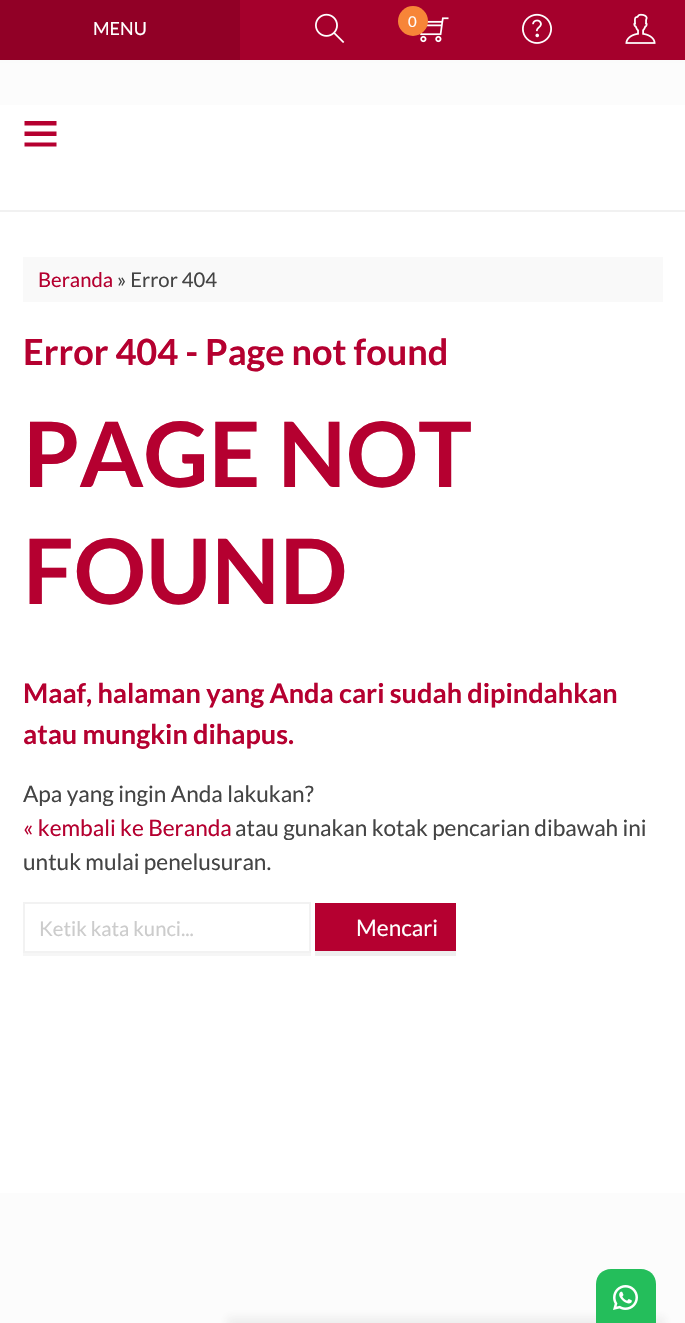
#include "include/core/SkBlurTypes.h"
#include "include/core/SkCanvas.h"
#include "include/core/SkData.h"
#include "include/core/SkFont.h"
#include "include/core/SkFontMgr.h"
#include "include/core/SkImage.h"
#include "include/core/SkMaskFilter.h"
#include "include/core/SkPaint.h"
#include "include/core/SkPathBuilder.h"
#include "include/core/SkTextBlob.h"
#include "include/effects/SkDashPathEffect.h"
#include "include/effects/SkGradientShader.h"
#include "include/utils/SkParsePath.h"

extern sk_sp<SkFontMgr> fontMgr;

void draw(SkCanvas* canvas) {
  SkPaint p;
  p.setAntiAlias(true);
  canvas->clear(SK_ColorWHITE);
  p.setColor(SkColorSetRGB(145, 0, 38));
  canvas->drawRect(SkRect::MakeLTRB(0, 0, 240, 60), p);
  {
    const SkColor colors[] = {SkColorSetRGB(250, 250, 250), SK_ColorWHITE};
    const float stops[] = {0, 1};
    const SkPoint ends[] = {{343, 0}, {343, 210}};
    p.setShader(SkGradientShader::MakeLinear(ends, colors, stops, 2, SkTileMode::kClamp));
    p.setAlpha(255);
  }
  canvas->drawRect(SkRect::MakeLTRB(0, 60, 685, 105), p);
  p.setShader(nullptr);
  p.setColor(SkColorSetRGB(241, 241, 241));
  canvas->drawRect(SkRect::MakeLTRB(0, 210, 685, 212), p);
  p.setColor(SkColorSetRGB(165, 0, 44));
  canvas->drawRect(SkRect::MakeLTRB(240, 0, 685, 60), p);
  canvas->drawImageRect(SkImages::DeferredFromEncodedData(SkData::MakeFromFileName("images/1.png")), SkRect::MakeLTRB(315, 13, 345, 43), SkSamplingOptions());
  canvas->drawImageRect(SkImages::DeferredFromEncodedData(SkData::MakeFromFileName("images/2.png")), SkRect::MakeLTRB(420, 17, 449, 43), SkSamplingOptions());
  p.setColor(SkColorSetRGB(247, 133, 56));
  canvas->drawCircle(413, 21, 15, p);
  canvas->drawImageRect(SkImages::DeferredFromEncodedData(SkData::MakeFromFileName("images/3.png")), SkRect::MakeLTRB(522, 13, 552, 44), SkSamplingOptions());
  canvas->drawImageRect(SkImages::DeferredFromEncodedData(SkData::MakeFromFileName("images/4.png")), SkRect::MakeLTRB(625, 13, 656, 44), SkSamplingOptions());
  p.setColor(SkColorSetRGB(181, 0, 48));
  canvas->drawPath(SkPathBuilder().moveTo(56.5f, 121).lineTo(56.5f, 125.5f).lineTo(24.5f, 125.5f).lineTo(24.5f, 121).close().moveTo(24.5f, 136).lineTo(56.5f, 136).lineTo(56.5f, 131.5f).lineTo(24.5f, 131.5f).close().moveTo(24.5f, 146.5f).lineTo(56.5f, 146.5f).lineTo(56.5f, 142.5f).lineTo(24.5f, 142.5f).close().detach(), p);
  {
    const SkColor colors[] = {SkColorSetRGB(252, 252, 252), SK_ColorWHITE};
    const float stops[] = {0, 1};
    const SkPoint ends[] = {{343, 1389}, {343, 212}};
    p.setShader(SkGradientShader::MakeLinear(ends, colors, stops, 2, SkTileMode::kClamp));
    p.setAlpha(255);
  }
  canvas->drawRect(SkRect::MakeLTRB(0, 1193, 685, 1323), p);
  p.setShader(nullptr);
  p.setColor(SkColorSetRGB(249, 249, 249));
  canvas->drawRect(SkRect::MakeLTRB(23, 257, 663, 302), p);
  p.setColor(SkColorSetRGB(246, 246, 246));
  canvas->drawPath(SkPathBuilder().moveTo(23, 952).lineTo(23, 956).lineTo(311, 956).lineTo(311, 905).lineTo(310, 905).lineTo(310, 952).close().detach(), p);
  p.setStyle(SkPaint::kStroke_Style);
  p.setStrokeWidth(2);
  p.setColor(SkColorSetRGB(242, 242, 242));
  canvas->drawRect(SkRect::MakeLTRB(24, 903, 310, 952), p);
  p.setStyle(SkPaint::kFill_Style);
  p.setColor(SkColorSetRGB(181, 0, 48));
  canvas->drawRect(SkRect::MakeLTRB(315, 903, 456, 951), p);
  p.setColor(SkColorSetRGB(238, 238, 238));
  canvas->drawRect(SkRect::MakeLTRB(315, 951, 456, 956), p);
  p.setColor(SkColorSetARGB(18, 51, 51, 51));
  p.setMaskFilter(SkMaskFilter::MakeBlur(kNormal_SkBlurStyle, 4.5f));
  canvas->drawRect(SkRect::MakeLTRB(227, 1317, 665, 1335), p);
  p.setMaskFilter(nullptr);
  p.setColor(SkColorSetRGB(36, 190, 91));
  canvas->drawPath(SkPathBuilder().moveTo(611, 1269).lineTo(641, 1269).cubicTo(649.5f, 1269, 656, 1275.5f, 656, 1284).lineTo(656, 1323).lineTo(596, 1323).lineTo(596, 1284).cubicTo(596, 1275.5f, 602.5f, 1269, 611, 1269).close().detach(), p);
  canvas->drawImageRect(SkImages::DeferredFromEncodedData(SkData::MakeFromFileName("images/5.png")), SkRect::MakeLTRB(613, 1285, 638, 1310), SkSamplingOptions());
  SkFont font1(fontMgr->matchFamilyStyle("Lato", SkFontStyle::Normal()), 18);
  font1.setSubpixel(true);
  p.setColor(SK_ColorWHITE);
  canvas->drawString("MENU", 93, 35, font1, p);
  SkFont font2(fontMgr->matchFamilyStyle("Lato", SkFontStyle::Normal()), 15);
  font2.setSubpixel(true);
  canvas->drawString("0", 408, 27, font2, p);
  SkFont font3(fontMgr->matchFamilyStyle("Lato", SkFontStyle::Normal()), 20.25f);
  font3.setSubpixel(true);
  p.setColor(SkColorSetRGB(181, 0, 48));
  canvas->drawString("Beranda", 38, 287, font3, p);
  p.setColor(SkColorSetRGB(68, 68, 68));
  canvas->drawString("» Error 404", 117, 287, font3, p);
  SkFont font4(fontMgr->matchFamilyStyle("Lato", SkFontStyle::Bold()), 36.1f);
  font4.setSubpixel(true);
  p.setColor(SkColorSetRGB(181, 0, 48));
  canvas->drawString("Error 404 - Page not found", 23, 365, font4, p);
  SkFont font5(fontMgr->matchFamilyStyle("Lato", SkFontStyle::Bold()), 90.25f);
  font5.setSubpixel(true);
  canvas->drawString("PAGE NOT", 23, 487, font5, p);
  canvas->drawString("FOUND", 23, 604, font5, p);
  SkFont font6(fontMgr->matchFamilyStyle("Lato", SkFontStyle::Bold()), 27.1f);
  font6.setSubpixel(true);
  canvas->drawString("Maaf, halaman yang Anda cari sudah dipindahkan", 23, 703, font6, p);
  canvas->drawString("atau mungkin dihapus.", 23, 744, font6, p);
  SkFont font7(fontMgr->matchFamilyStyle("Lato", SkFontStyle::Normal()), 22.6f);
  font7.setSubpixel(true);
  p.setColor(SkColorSetRGB(68, 68, 68));
  canvas->drawString("Apa yang ingin Anda lakukan?", 23, 802, font7, p);
  p.setColor(SkColorSetRGB(181, 0, 48));
  canvas->drawString("« kembali ke Beranda", 23, 836, font7, p);
  p.setColor(SkColorSetRGB(68, 68, 68));
  canvas->drawString("atau gunakan kotak pencarian dibawah ini", 235, 836, font7, p);
  canvas->drawString("untuk mulai penelusuran.", 23, 870, font7, p);
  p.setColor(SkColorSetRGB(204, 204, 204));
  canvas->drawString("Ketik kata kunci...", 39, 936, font3, p);
  p.setColor(SK_ColorWHITE);
  canvas->drawString("Mencari", 356, 936, font7, p);
}
